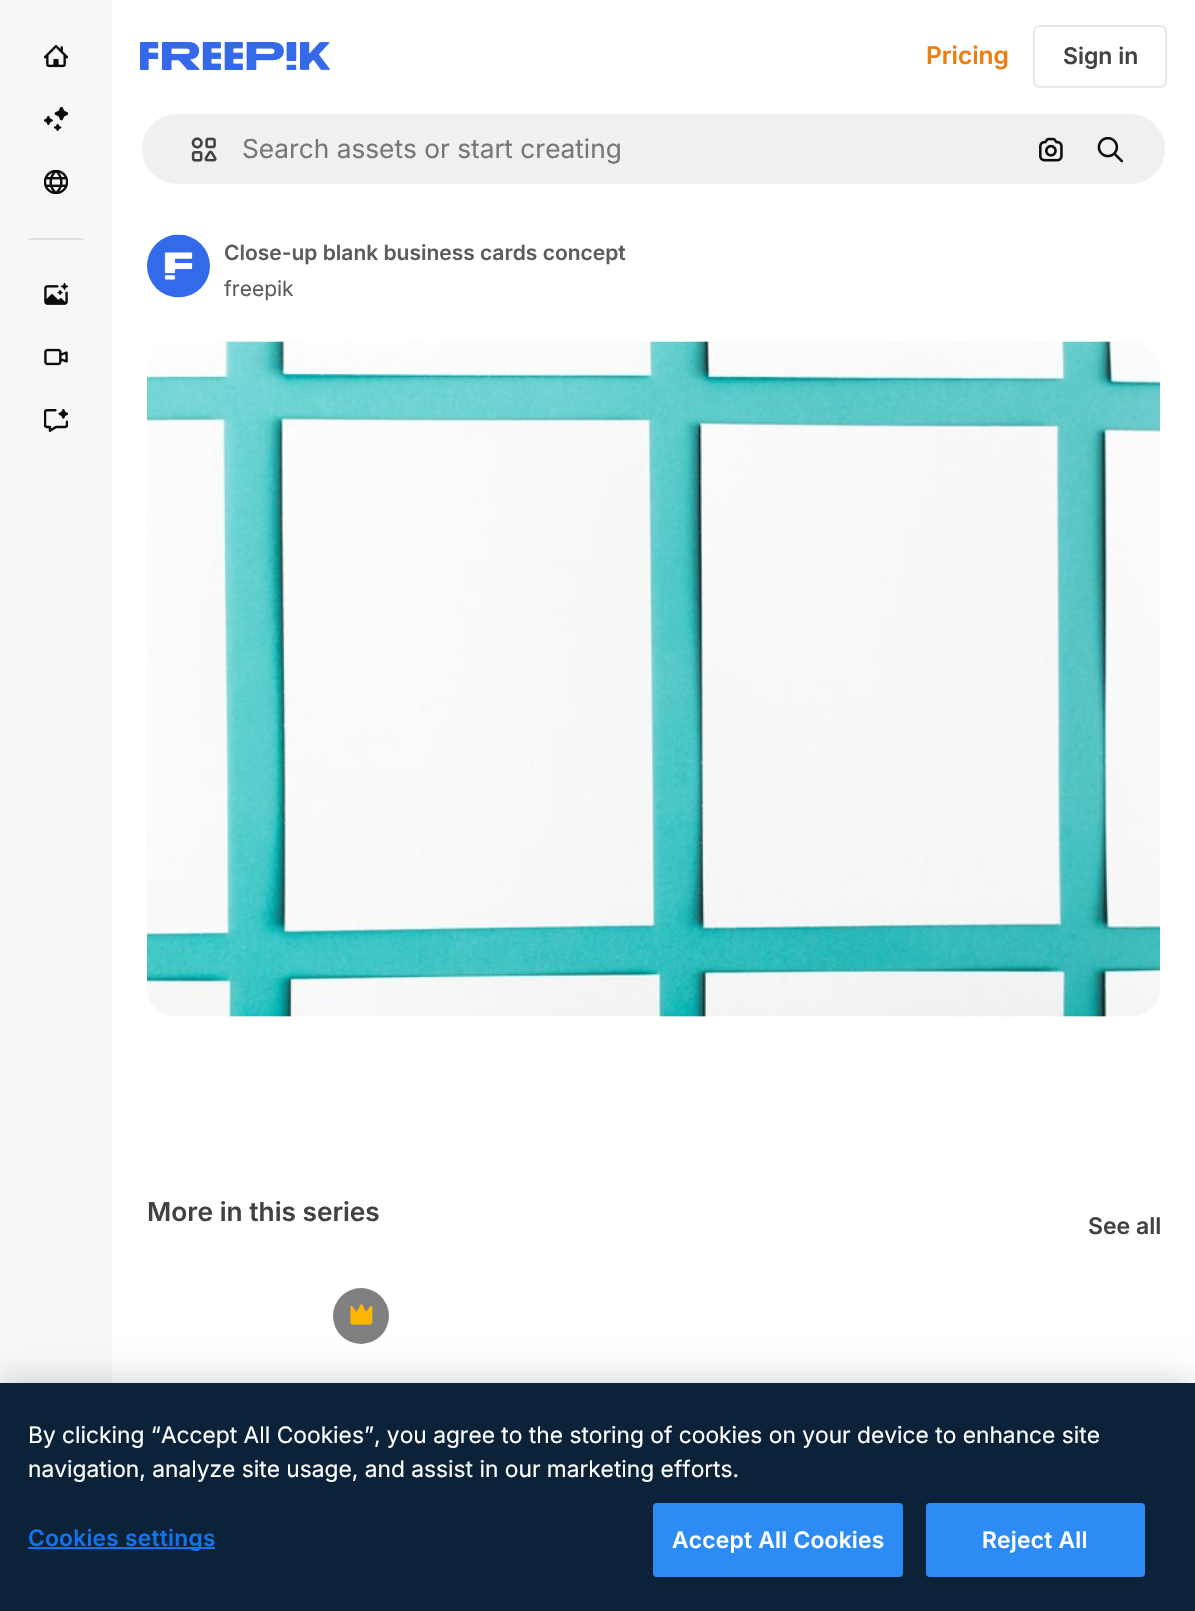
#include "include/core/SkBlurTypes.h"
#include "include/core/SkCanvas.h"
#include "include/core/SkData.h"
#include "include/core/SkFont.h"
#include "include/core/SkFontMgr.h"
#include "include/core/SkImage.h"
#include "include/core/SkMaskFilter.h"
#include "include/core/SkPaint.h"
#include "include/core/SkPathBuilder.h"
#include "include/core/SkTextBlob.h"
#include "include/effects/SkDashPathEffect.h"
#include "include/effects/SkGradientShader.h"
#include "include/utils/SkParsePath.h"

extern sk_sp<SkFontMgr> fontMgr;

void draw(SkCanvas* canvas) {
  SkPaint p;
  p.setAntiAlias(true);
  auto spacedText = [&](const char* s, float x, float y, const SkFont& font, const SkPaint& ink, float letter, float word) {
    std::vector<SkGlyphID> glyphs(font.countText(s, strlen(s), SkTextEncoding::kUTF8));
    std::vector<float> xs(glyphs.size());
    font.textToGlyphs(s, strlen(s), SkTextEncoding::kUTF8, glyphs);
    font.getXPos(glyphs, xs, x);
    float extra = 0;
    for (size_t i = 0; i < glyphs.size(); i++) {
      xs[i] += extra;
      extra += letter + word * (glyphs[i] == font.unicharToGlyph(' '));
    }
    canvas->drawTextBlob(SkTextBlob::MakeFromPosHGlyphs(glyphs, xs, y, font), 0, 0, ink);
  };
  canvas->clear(SK_ColorWHITE);
  p.setColor(SkColorSetRGB(247, 247, 247));
  canvas->drawRect(SkRect::MakeLTRB(0, 0, 112, 1383), p);
  canvas->drawImageRect(SkImages::DeferredFromEncodedData(SkData::MakeFromFileName("images/1.png")), SkRect::MakeLTRB(44, 45, 68, 68), SkSamplingOptions());
  canvas->drawImageRect(SkImages::DeferredFromEncodedData(SkData::MakeFromFileName("images/2.png")), SkRect::MakeLTRB(44, 107, 68, 131), SkSamplingOptions());
  canvas->drawImageRect(SkImages::DeferredFromEncodedData(SkData::MakeFromFileName("images/3.png")), SkRect::MakeLTRB(44, 170, 68, 194), SkSamplingOptions());
  p.setColor(SkColorSetRGB(224, 224, 224));
  canvas->drawRect(SkRect::MakeLTRB(28, 238, 84, 240), p);
  canvas->drawImageRect(SkImages::DeferredFromEncodedData(SkData::MakeFromFileName("images/4.png")), SkRect::MakeLTRB(44, 282, 68, 305), SkSamplingOptions());
  canvas->drawImageRect(SkImages::DeferredFromEncodedData(SkData::MakeFromFileName("images/5.png")), SkRect::MakeLTRB(44, 348, 68, 366), SkSamplingOptions());
  canvas->drawImageRect(SkImages::DeferredFromEncodedData(SkData::MakeFromFileName("images/6.png")), SkRect::MakeLTRB(44, 409, 68, 432), SkSamplingOptions());
  canvas->drawImageRect(SkImages::DeferredFromEncodedData(SkData::MakeFromFileName("images/7.png")), SkRect::MakeLTRB(140, 42, 330, 70), SkSamplingOptions());
  p.setStyle(SkPaint::kStroke_Style);
  p.setStrokeWidth(2);
  p.setColor(SkColorSetRGB(231, 231, 231));
  canvas->drawRoundRect(SkRect::MakeLTRB(1034, 26, 1166, 87), 6, 6, p);
  p.setStyle(SkPaint::kFill_Style);
  p.setColor(SkColorSetRGB(240, 240, 240));
  canvas->drawRoundRect(SkRect::MakeLTRB(141, 113, 1166, 185), 36, 36, p);
  p.setStyle(SkPaint::kStroke_Style);
  p.setColor(SK_ColorWHITE);
  canvas->drawRoundRect(SkRect::MakeLTRB(141, 113, 1166, 185), 36, 36, p);
  canvas->drawImageRect(SkImages::DeferredFromEncodedData(SkData::MakeFromFileName("images/8.png")), SkRect::MakeLTRB(191, 137, 217, 162), SkSamplingOptions());
  canvas->drawImageRect(SkImages::DeferredFromEncodedData(SkData::MakeFromFileName("images/9.png")), SkRect::MakeLTRB(1039, 137, 1063, 162), SkSamplingOptions());
  canvas->drawImageRect(SkImages::DeferredFromEncodedData(SkData::MakeFromFileName("images/10.png")), SkRect::MakeLTRB(1097, 137, 1124, 163), SkSamplingOptions());
  canvas->drawImageRect(SkImages::DeferredFromEncodedData(SkData::MakeFromFileName("images/11.png")), SkRect::MakeLTRB(147, 234, 210, 298), SkSamplingOptions());
  canvas->drawImageRect(SkImages::DeferredFromEncodedData(SkData::MakeFromFileName("images/12.png")), SkRect::MakeLTRB(147, 341, 1160, 1017), SkSamplingOptions());
  p.setStyle(SkPaint::kFill_Style);
  p.setColor(SkColorSetRGB(128, 128, 128));
  canvas->drawCircle(361, 1316, 28, p);
  canvas->drawImageRect(SkImages::DeferredFromEncodedData(SkData::MakeFromFileName("images/13.png")), SkRect::MakeLTRB(350, 1304, 373, 1325), SkSamplingOptions());
  p.setColor(SkColorSetARGB(51, 0, 0, 0));
  p.setMaskFilter(SkMaskFilter::MakeBlur(kNormal_SkBlurStyle, 16));
  canvas->drawRect(SkRect::MakeLTRB(0, 1383, 1195, 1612), p);
  p.setMaskFilter(nullptr);
  p.setColor(SkColorSetRGB(11, 34, 57));
  canvas->drawRect(SkRect::MakeLTRB(0, 1383, 1195, 1611), p);
  p.setColor(SkColorSetRGB(18, 115, 235));
  canvas->drawRect(SkRect::MakeLTRB(28, 1547, 215, 1549), p);
  p.setColor(SkColorSetRGB(44, 140, 244));
  canvas->drawRoundRect(SkRect::MakeLTRB(654, 1504, 902, 1576), 3, 3, p);
  p.setStyle(SkPaint::kStroke_Style);
  canvas->drawRoundRect(SkRect::MakeLTRB(654, 1504, 902, 1576), 3, 3, p);
  p.setStyle(SkPaint::kFill_Style);
  canvas->drawRoundRect(SkRect::MakeLTRB(927, 1504, 1144, 1576), 3, 3, p);
  p.setStyle(SkPaint::kStroke_Style);
  canvas->drawRoundRect(SkRect::MakeLTRB(927, 1504, 1144, 1576), 3, 3, p);
  SkFont font1(fontMgr->matchFamilyStyle("Inter", SkFontStyle(600, SkFontStyle::kNormal_Width, SkFontStyle::kUpright_Slant)), 24.5f);
  font1.setSubpixel(true);
  p.setStyle(SkPaint::kFill_Style);
  p.setColor(SkColorSetRGB(234, 126, 17));
  canvas->drawString("Pricing", 926, 64, font1, p);
  SkFont font2(fontMgr->matchFamilyStyle("Inter", SkFontStyle(600, SkFontStyle::kNormal_Width, SkFontStyle::kUpright_Slant)), 23);
  font2.setSubpixel(true);
  p.setColor(SkColorSetRGB(66, 66, 66));
  canvas->drawString("Sign in", 1063, 64, font2, p);
  SkFont font3(fontMgr->matchFamilyStyle("Inter", SkFontStyle::Normal()), 26.25f);
  font3.setSubpixel(true);
  p.setColor(SkColorSetRGB(119, 119, 119));
  canvas->drawString("Search assets or start creating", 242, 158, font3, p);
  SkFont font4(fontMgr->matchFamilyStyle("Inter", SkFontStyle(600, SkFontStyle::kNormal_Width, SkFontStyle::kUpright_Slant)), 21);
  font4.setSubpixel(true);
  p.setColor(SkColorSetRGB(92, 92, 92));
  canvas->drawString("Close-up blank business cards concept", 224, 260, font4, p);
  SkFont font5(fontMgr->matchFamilyStyle("Inter", SkFontStyle::Normal()), 21);
  font5.setSubpixel(true);
  canvas->drawString("freepik", 224, 296, font5, p);
  SkFont font6(fontMgr->matchFamilyStyle("Inter", SkFontStyle(600, SkFontStyle::kNormal_Width, SkFontStyle::kUpright_Slant)), 26.25f);
  font6.setSubpixel(true);
  p.setColor(SkColorSetRGB(66, 66, 66));
  canvas->drawString("More in this series", 147, 1221, font6, p);
  canvas->drawString("See all", 1088, 1234, font2, p);
  SkFont font7(fontMgr->matchFamilyStyle("Inter", SkFontStyle::Normal()), 22.75f);
  font7.setSubpixel(true);
  p.setColor(SK_ColorWHITE);
  canvas->drawString("By clicking “Accept All Cookies”, you agree to the storing of cookies on your device to enhance site", 28, 1443, font7, p);
  canvas->drawString("navigation, analyze site usage, and assist in our marketing efforts.", 28, 1477, font7, p);
  SkFont font8(fontMgr->matchFamilyStyle("Inter", SkFontStyle(600, SkFontStyle::kNormal_Width, SkFontStyle::kUpright_Slant)), 22.75f);
  font8.setSubpixel(true);
  p.setColor(SkColorSetRGB(18, 115, 235));
  spacedText("Cookies settings", 28, 1546, font8, p, 0.25f, 0);
  p.setColor(SK_ColorWHITE);
  spacedText("Accept All Cookies", 672, 1548, font8, p, 0.25f, 0);
  spacedText("Reject All", 982, 1548, font8, p, 0.25f, 0);
}
